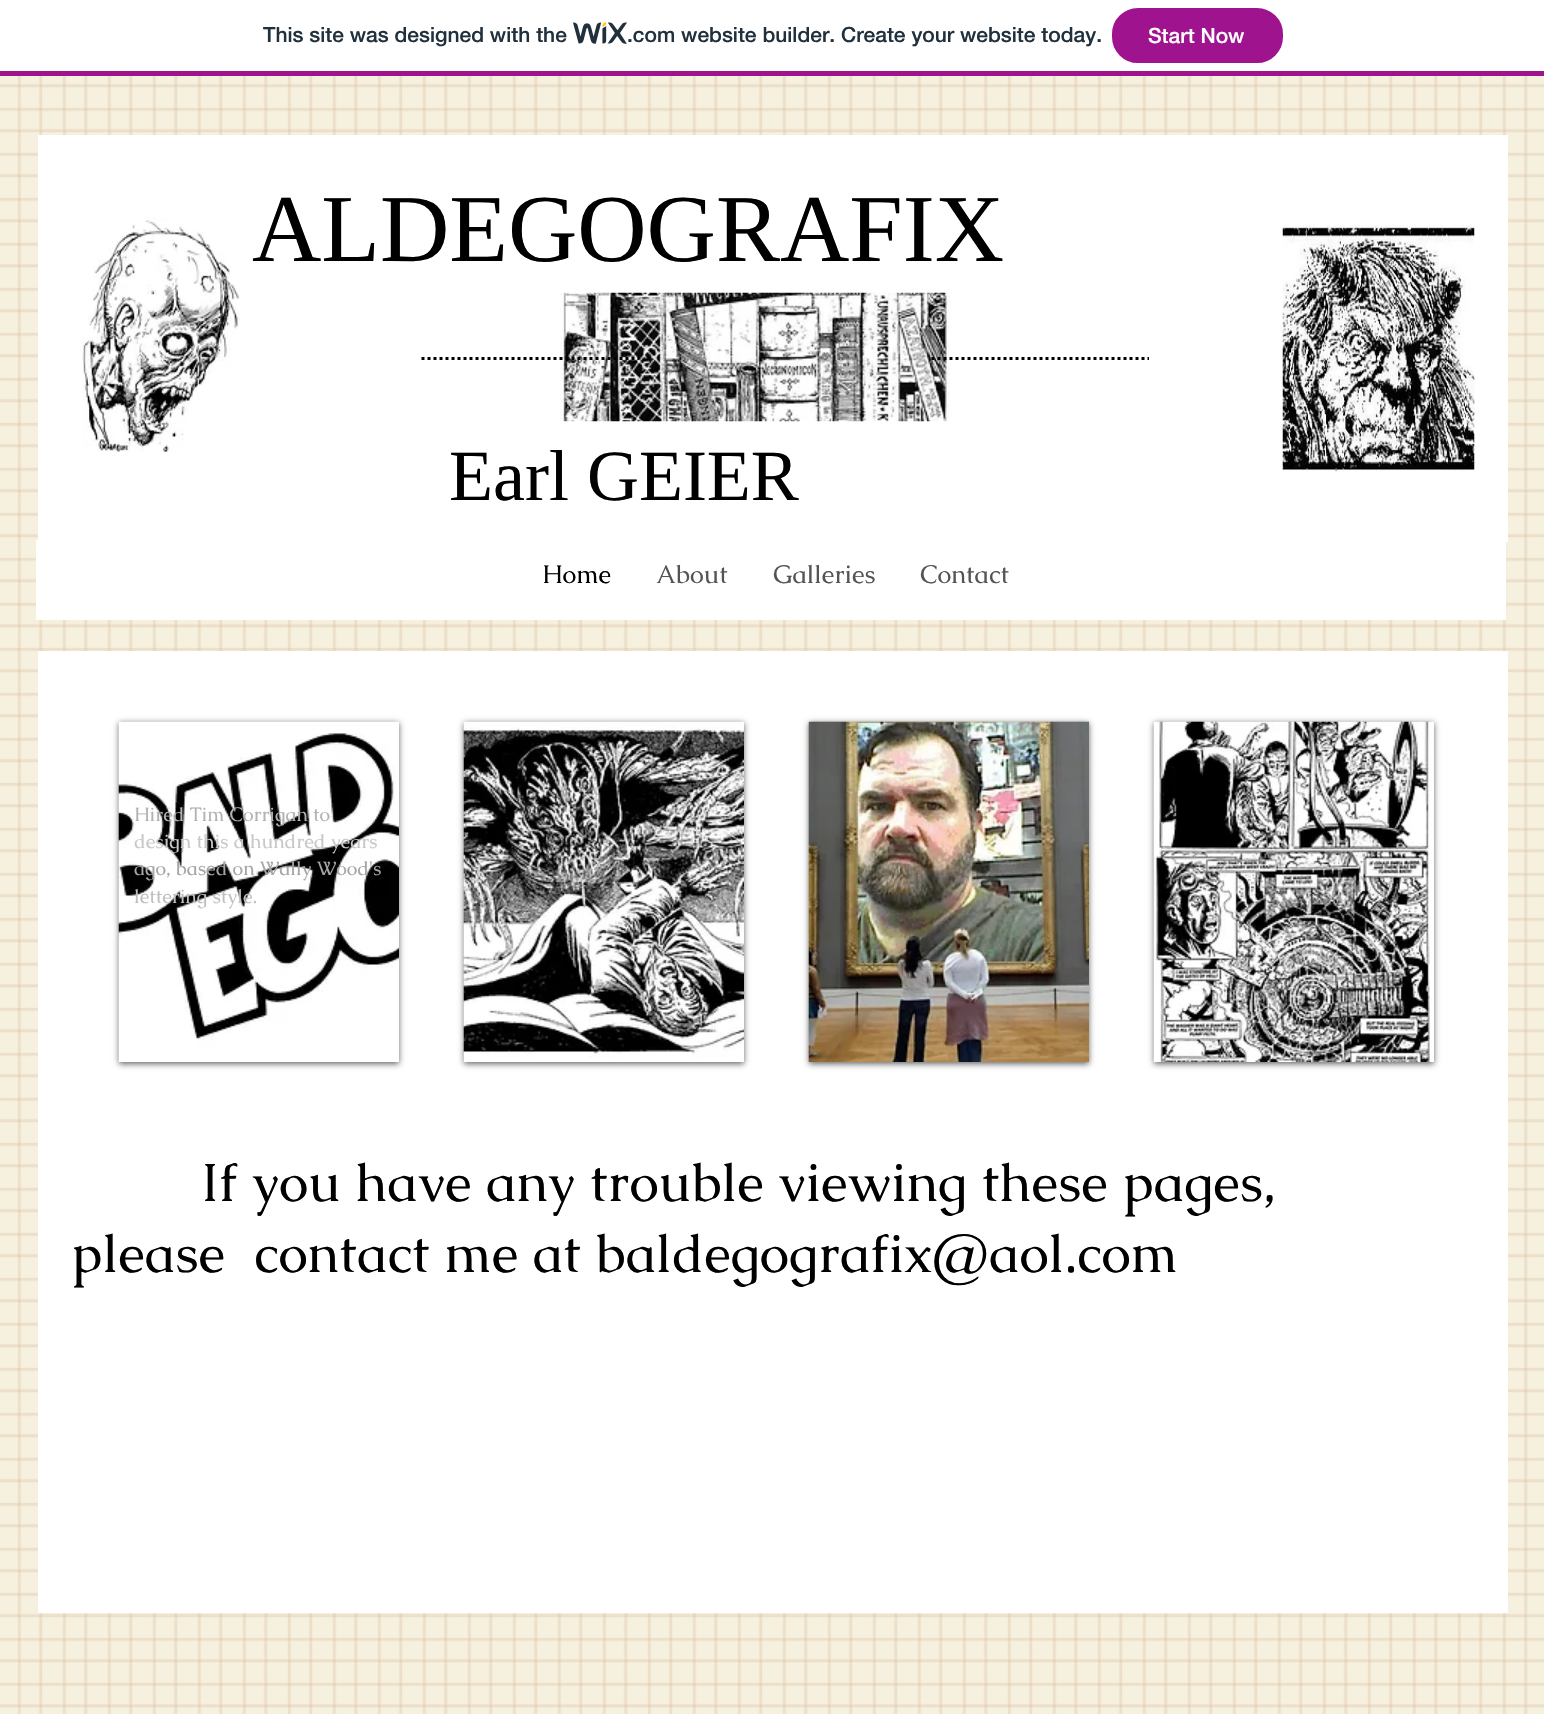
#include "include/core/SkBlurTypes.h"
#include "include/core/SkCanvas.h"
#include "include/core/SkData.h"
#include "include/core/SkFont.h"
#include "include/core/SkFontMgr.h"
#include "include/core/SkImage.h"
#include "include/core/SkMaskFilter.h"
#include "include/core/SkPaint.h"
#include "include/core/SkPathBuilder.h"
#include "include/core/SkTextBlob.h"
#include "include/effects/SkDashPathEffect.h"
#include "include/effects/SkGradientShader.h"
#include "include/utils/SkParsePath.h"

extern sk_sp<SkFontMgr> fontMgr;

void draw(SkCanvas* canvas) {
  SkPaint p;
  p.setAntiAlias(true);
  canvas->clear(SK_ColorWHITE);
  p.setColor(SkColorSetRGB(160, 19, 142));
  canvas->drawRect(SkRect::MakeLTRB(0, 71, 1544, 76), p);
  canvas->drawImageRect(SkImages::DeferredFromEncodedData(SkData::MakeFromFileName("images/1.png")), SkRect::MakeLTRB(573, 22, 627, 44), SkSamplingOptions());
  canvas->drawRoundRect(SkRect::MakeLTRB(1113, 9, 1282, 62), 25, 25, p);
  p.setStyle(SkPaint::kStroke_Style);
  p.setStrokeWidth(2);
  canvas->drawRoundRect(SkRect::MakeLTRB(1113, 9, 1282, 62), 25, 25, p);
  p.setStyle(SkPaint::kFill_Style);
  p.setColor(SkColorSetRGB(246, 240, 223));
  canvas->drawRect(SkRect::MakeLTRB(0, 76, 1544, 1714), p);
  canvas->drawImageRect(SkImages::DeferredFromEncodedData(SkData::MakeFromFileName("images/2.png")), SkRect::MakeLTRB(0, 76, 1544, 1714), SkSamplingOptions());
  p.setColor(SK_ColorWHITE);
  canvas->drawRect(SkRect::MakeLTRB(38, 135, 1508, 542), p);
  canvas->drawImageRect(SkImages::DeferredFromEncodedData(SkData::MakeFromFileName("images/3.png")), SkRect::MakeLTRB(82, 217, 240, 452), SkSamplingOptions());
  canvas->drawImageRect(SkImages::DeferredFromEncodedData(SkData::MakeFromFileName("images/4.png")), SkRect::MakeLTRB(1282, 225, 1475, 472), SkSamplingOptions());
  canvas->drawImageRect(SkImages::DeferredFromEncodedData(SkData::MakeFromFileName("images/5.png")), SkRect::MakeLTRB(560, 292, 950, 422), SkSamplingOptions());
  p.setStyle(SkPaint::kStroke_Style);
  p.setStrokeWidth(3);
  p.setColor(SK_ColorBLACK);
  p.setPathEffect(SkDashPathEffect::Make({{3, 3}}, 0));
  canvas->drawPath(SkPathBuilder().moveTo(421.5f, 358.5f).lineTo(639, 358.5f).detach(), p);
  p.setPathEffect(nullptr);
  p.setPathEffect(SkDashPathEffect::Make({{3, 3}}, 0));
  canvas->drawPath(SkPathBuilder().moveTo(931.5f, 358.5f).lineTo(1149, 358.5f).detach(), p);
  p.setPathEffect(nullptr);
  p.setStyle(SkPaint::kFill_Style);
  p.setColor(SK_ColorWHITE);
  canvas->drawRect(SkRect::MakeLTRB(36, 540, 1506, 620), p);
  canvas->drawRect(SkRect::MakeLTRB(38, 651, 1508, 1613), p);
  p.setColor(SkColorSetARGB(153, 0, 0, 0));
  p.setMaskFilter(SkMaskFilter::MakeBlur(kNormal_SkBlurStyle, 3));
  canvas->drawRect(SkRect::MakeLTRB(119, 723, 399, 1064), p);
  p.setMaskFilter(nullptr);
  canvas->drawImageRect(SkImages::DeferredFromEncodedData(SkData::MakeFromFileName("images/6.png")), SkRect::MakeLTRB(118, 721, 399, 1062), SkSamplingOptions());
  p.setMaskFilter(SkMaskFilter::MakeBlur(kNormal_SkBlurStyle, 3));
  canvas->drawRect(SkRect::MakeLTRB(464, 723, 744, 1064), p);
  p.setMaskFilter(nullptr);
  canvas->drawImageRect(SkImages::DeferredFromEncodedData(SkData::MakeFromFileName("images/7.png")), SkRect::MakeLTRB(463, 721, 744, 1062), SkSamplingOptions());
  p.setMaskFilter(SkMaskFilter::MakeBlur(kNormal_SkBlurStyle, 3));
  canvas->drawRect(SkRect::MakeLTRB(809, 723, 1089, 1064), p);
  p.setMaskFilter(nullptr);
  canvas->drawImageRect(SkImages::DeferredFromEncodedData(SkData::MakeFromFileName("images/8.png")), SkRect::MakeLTRB(808, 721, 1089, 1062), SkSamplingOptions());
  p.setMaskFilter(SkMaskFilter::MakeBlur(kNormal_SkBlurStyle, 3));
  canvas->drawRect(SkRect::MakeLTRB(1154, 723, 1434, 1064), p);
  p.setMaskFilter(nullptr);
  canvas->drawImageRect(SkImages::DeferredFromEncodedData(SkData::MakeFromFileName("images/9.png")), SkRect::MakeLTRB(1153, 721, 1434, 1062), SkSamplingOptions());
  SkFont font1(fontMgr->matchFamilyStyle("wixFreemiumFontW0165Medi", SkFontStyle(500, SkFontStyle::kNormal_Width, SkFontStyle::kUpright_Slant)), 21);
  font1.setSubpixel(true);
  p.setColor(SkColorSetRGB(32, 48, 60));
  canvas->drawString("This site was designed with the", 263, 42, font1, p);
  canvas->drawString(".com website builder. Create your website today.", 627, 42, font1, p);
  p.setColor(SK_ColorWHITE);
  canvas->drawString("Start Now", 1148, 43, font1, p);
  SkFont font2(fontMgr->matchFamilyStyle("Liberation Serif", SkFontStyle::Normal()), 96);
  font2.setSubpixel(true);
  p.setColor(SK_ColorBLACK);
  canvas->drawString("ALDEGOGRAFIX", 252, 261, font2, p);
  SkFont font3(fontMgr->matchFamilyStyle("Liberation Serif", SkFontStyle::Normal()), 72);
  font3.setSubpixel(true);
  canvas->drawString("Earl GEIER", 449, 500, font3, p);
  SkFont font4(fontMgr->matchFamilyStyle("Caudex", SkFontStyle::Normal()), 25.5f);
  font4.setSubpixel(true);
  canvas->drawString("Home", 542, 583, font4, p);
  p.setColor(SkColorSetRGB(84, 84, 84));
  canvas->drawString("About", 656, 583, font4, p);
  canvas->drawString("Galleries", 773, 583, font4, p);
  canvas->drawString("Contact", 920, 583, font4, p);
  SkFont font5(fontMgr->matchFamilyStyle("Caudex", SkFontStyle::Normal()), 19.5f);
  font5.setSubpixel(true);
  p.setColor(SkColorSetRGB(178, 178, 178));
  canvas->drawString("Hired Tim Corrigan to", 134, 821, font5, p);
  p.setColor(SkColorSetRGB(200, 200, 200));
  canvas->drawString("design this a hundred years", 134, 848, font5, p);
  p.setColor(SkColorSetRGB(165, 165, 165));
  canvas->drawString("ago, based on Wally Wood's", 134, 875, font5, p);
  p.setColor(SkColorSetRGB(191, 191, 191));
  canvas->drawString("lettering style.", 134, 903, font5, p);
  SkFont font6(fontMgr->matchFamilyStyle("Caudex", SkFontStyle::Normal()), 54);
  font6.setSubpixel(true);
  p.setColor(SK_ColorBLACK);
  canvas->drawString("If you have any trouble viewing these pages,", 201, 1201, font6, p);
  canvas->drawString("please  contact me at baldegografix@aol.com", 71, 1272, font6, p);
}
